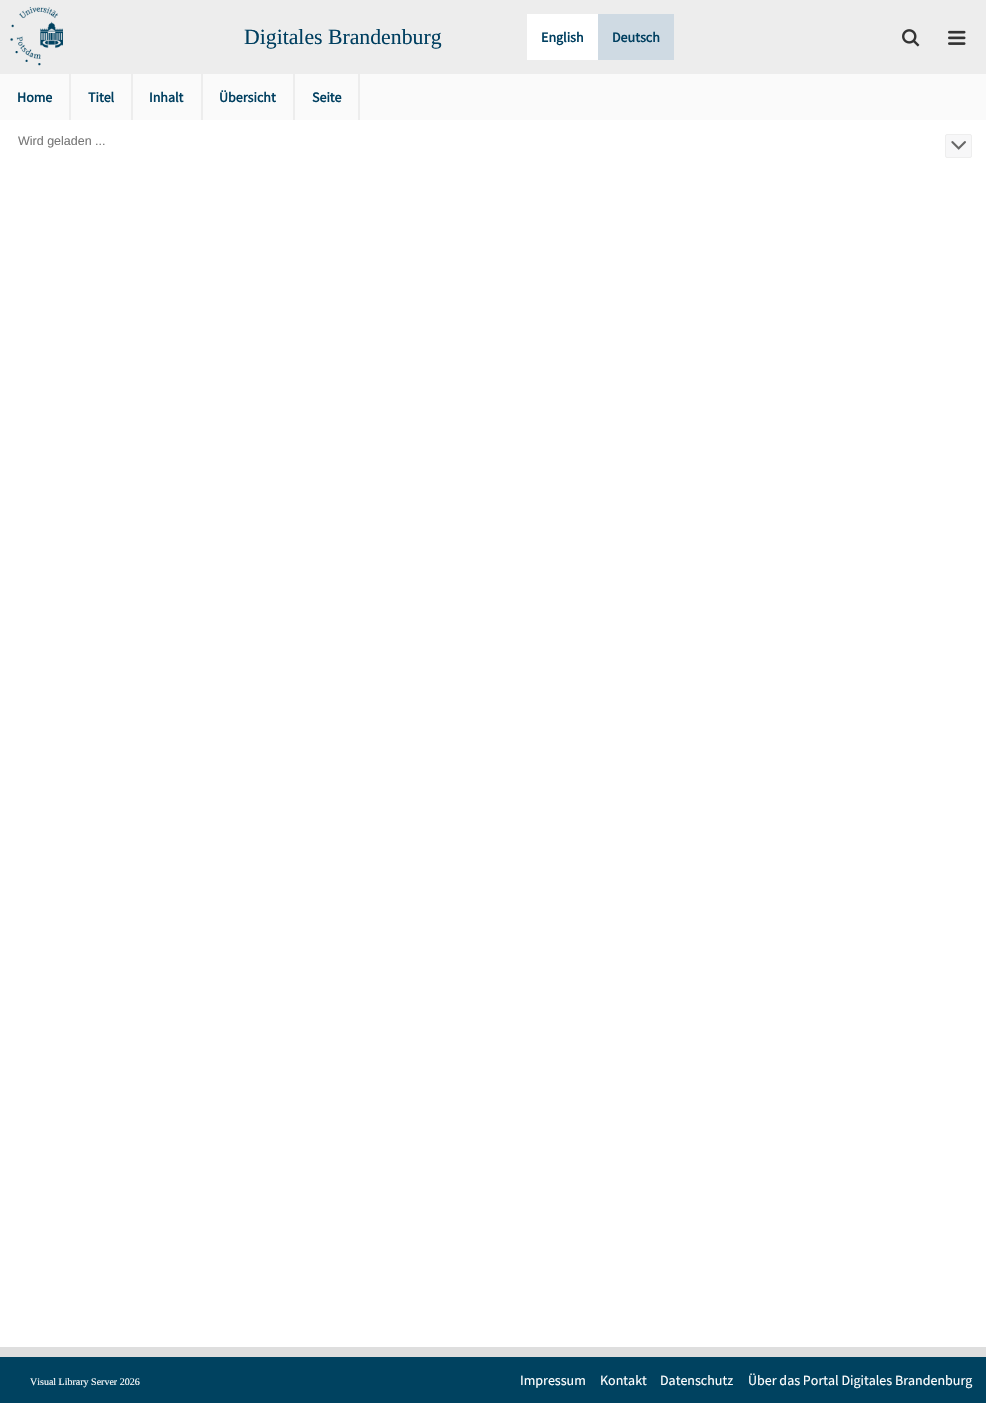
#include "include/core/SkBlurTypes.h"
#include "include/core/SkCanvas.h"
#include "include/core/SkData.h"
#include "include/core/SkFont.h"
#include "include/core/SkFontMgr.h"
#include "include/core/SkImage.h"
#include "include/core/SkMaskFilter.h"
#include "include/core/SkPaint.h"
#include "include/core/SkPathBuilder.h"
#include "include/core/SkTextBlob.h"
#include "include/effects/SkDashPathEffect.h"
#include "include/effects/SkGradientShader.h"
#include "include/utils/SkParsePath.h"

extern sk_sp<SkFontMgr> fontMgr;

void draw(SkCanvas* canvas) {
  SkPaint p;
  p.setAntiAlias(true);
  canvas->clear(SK_ColorWHITE);
  p.setColor(SkColorSetRGB(237, 237, 237));
  canvas->drawRect(SkRect::MakeLTRB(0, 0, 986, 74), p);
  canvas->drawImageRect(SkImages::DeferredFromEncodedData(SkData::MakeFromFileName("images/1.png")), SkRect::MakeLTRB(10, 7, 63, 66), SkSamplingOptions());
  p.setColor(SK_ColorWHITE);
  canvas->drawRect(SkRect::MakeLTRB(527, 14, 598, 60), p);
  p.setColor(SkColorSetRGB(207, 218, 227));
  canvas->drawRect(SkRect::MakeLTRB(598, 14, 674, 60), p);
  canvas->drawImageRect(SkImages::DeferredFromEncodedData(SkData::MakeFromFileName("images/2.png")), SkRect::MakeLTRB(902, 29, 920, 47), SkSamplingOptions());
  canvas->drawImageRect(SkImages::DeferredFromEncodedData(SkData::MakeFromFileName("images/3.png")), SkRect::MakeLTRB(948, 30, 966, 45), SkSamplingOptions());
  p.setColor(SkColorSetRGB(250, 250, 250));
  canvas->drawRect(SkRect::MakeLTRB(0, 74, 986, 120), p);
  p.setColor(SkColorSetRGB(237, 237, 237));
  canvas->drawRect(SkRect::MakeLTRB(69, 74, 71, 120), p);
  canvas->drawRect(SkRect::MakeLTRB(131, 74, 133, 120), p);
  canvas->drawRect(SkRect::MakeLTRB(201, 74, 203, 120), p);
  canvas->drawRect(SkRect::MakeLTRB(293, 74, 295, 120), p);
  canvas->drawRect(SkRect::MakeLTRB(358, 74, 360, 120), p);
  p.setColor(SkColorSetRGB(247, 247, 248));
  canvas->drawRoundRect(SkRect::MakeLTRB(945.5f, 134.5f, 971.5f, 157.5f), 1.5f, 1.5f, p);
  p.setStyle(SkPaint::kStroke_Style);
  p.setStrokeWidth(1);
  p.setColor(SkColorSetRGB(238, 238, 238));
  canvas->drawRoundRect(SkRect::MakeLTRB(945.5f, 134.5f, 971.5f, 157.5f), 1.5f, 1.5f, p);
  canvas->drawImageRect(SkImages::DeferredFromEncodedData(SkData::MakeFromFileName("images/4.png")), SkRect::MakeLTRB(951, 141, 966, 150), SkSamplingOptions());
  p.setStyle(SkPaint::kFill_Style);
  p.setColor(SkColorSetRGB(0, 66, 96));
  canvas->drawRect(SkRect::MakeLTRB(0, 1357, 986, 1403), p);
  p.setColor(SkColorSetRGB(222, 222, 222));
  canvas->drawRect(SkRect::MakeLTRB(0, 1347, 986, 1357), p);
  SkFont font1(fontMgr->matchFamilyStyle("Liberation Serif", SkFontStyle::Normal()), 21.75f);
  font1.setSubpixel(true);
  p.setColor(SkColorSetRGB(0, 63, 96));
  canvas->drawString("Digitales Brandenburg", 244, 44, font1, p);
  SkFont font2(fontMgr->matchFamilyStyle("Source Sans Pro", SkFontStyle::Bold()), 14);
  font2.setSubpixel(true);
  canvas->drawString("English", 541, 42, font2, p);
  canvas->drawString("Deutsch", 612, 42, font2, p);
  canvas->drawString("Home", 17, 102, font2, p);
  canvas->drawString("Titel", 88, 102, font2, p);
  canvas->drawString("Inhalt", 149, 102, font2, p);
  canvas->drawString("Übersicht", 219, 102, font2, p);
  canvas->drawString("Seite", 312, 102, font2, p);
  SkFont font3(fontMgr->matchFamilyStyle("Liberation Sans", SkFontStyle::Normal()), 12.5f);
  font3.setSubpixel(true);
  p.setColor(SkColorSetRGB(119, 119, 119));
  canvas->drawString("Wird geladen ...", 18, 145, font3, p);
  SkFont font4(fontMgr->matchFamilyStyle("Liberation Serif", SkFontStyle::Normal()), 10);
  font4.setSubpixel(true);
  p.setColor(SK_ColorWHITE);
  canvas->drawString("Visual Library Server 2026", 30, 1385, font4, p);
  SkFont font5(fontMgr->matchFamilyStyle("Source Sans Pro", SkFontStyle::Normal()), 14);
  font5.setSubpixel(true);
  canvas->drawString("Impressum", 520, 1385, font5, p);
  canvas->drawString("Kontakt", 600, 1385, font5, p);
  canvas->drawString("Datenschutz", 660, 1385, font5, p);
  canvas->drawString("Über das Portal Digitales Brandenburg", 748, 1385, font5, p);
}
